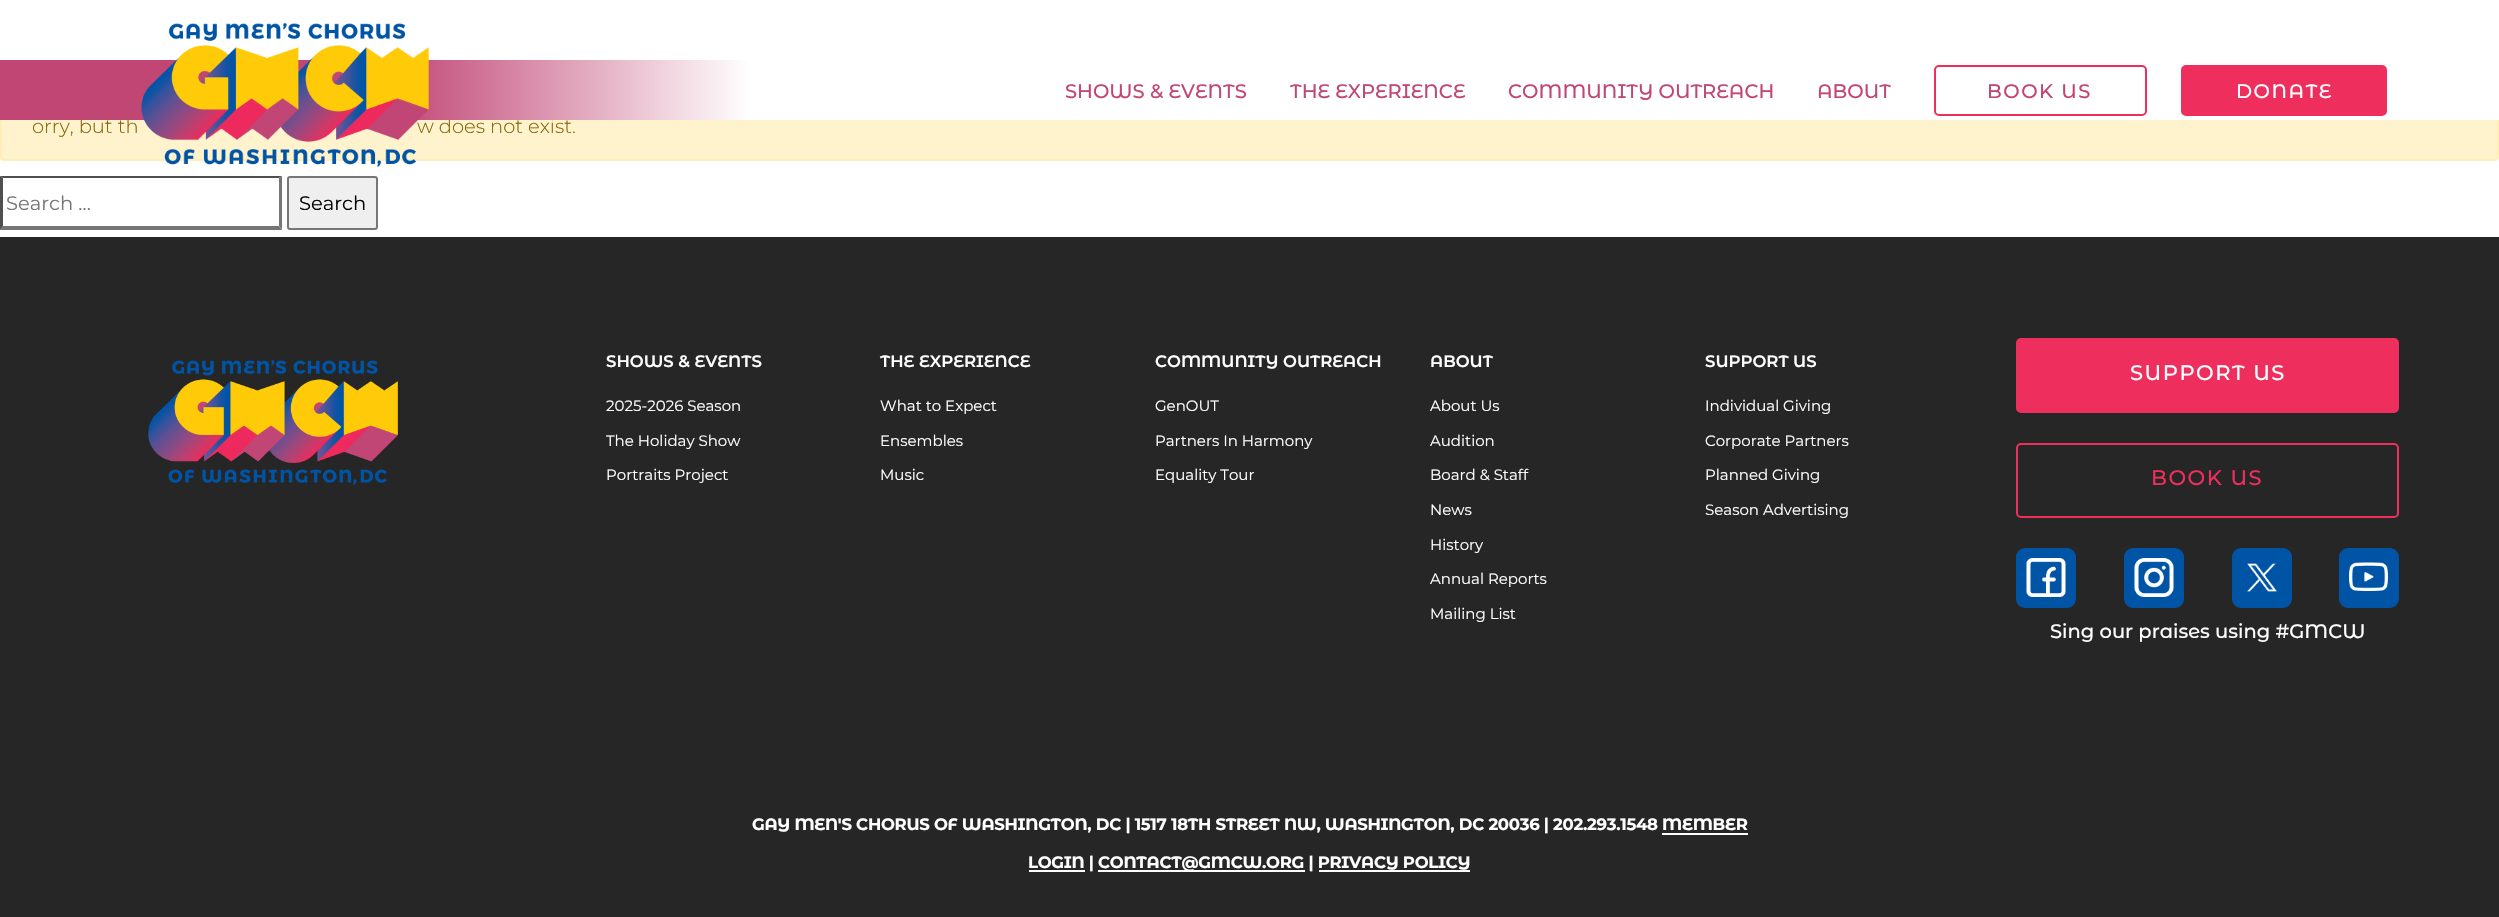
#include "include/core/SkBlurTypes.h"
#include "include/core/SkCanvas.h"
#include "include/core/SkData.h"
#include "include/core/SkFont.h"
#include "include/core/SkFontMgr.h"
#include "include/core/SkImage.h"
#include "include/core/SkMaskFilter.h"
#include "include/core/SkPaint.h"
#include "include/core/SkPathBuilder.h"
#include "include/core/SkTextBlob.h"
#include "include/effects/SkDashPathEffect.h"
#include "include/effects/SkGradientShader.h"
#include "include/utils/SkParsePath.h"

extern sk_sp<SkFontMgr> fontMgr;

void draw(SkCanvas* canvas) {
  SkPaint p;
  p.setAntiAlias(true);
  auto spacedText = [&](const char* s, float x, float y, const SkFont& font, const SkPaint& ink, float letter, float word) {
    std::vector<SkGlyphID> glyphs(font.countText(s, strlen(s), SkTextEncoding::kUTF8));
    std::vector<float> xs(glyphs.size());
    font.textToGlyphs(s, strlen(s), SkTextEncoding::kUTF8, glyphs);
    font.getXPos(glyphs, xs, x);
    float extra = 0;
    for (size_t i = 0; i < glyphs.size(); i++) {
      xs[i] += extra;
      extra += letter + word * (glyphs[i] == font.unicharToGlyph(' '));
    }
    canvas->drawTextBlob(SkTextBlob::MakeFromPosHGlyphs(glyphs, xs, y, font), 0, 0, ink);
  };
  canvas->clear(SK_ColorWHITE);
  p.setColor(SkColorSetRGB(255, 243, 205));
  canvas->drawRoundRect(SkRect::MakeLTRB(1, 91, 2498, 160), 3, 3, p);
  p.setStyle(SkPaint::kStroke_Style);
  p.setStrokeWidth(2);
  p.setColor(SkColorSetRGB(255, 238, 186));
  canvas->drawRoundRect(SkRect::MakeLTRB(1, 91, 2498, 160), 3, 3, p);
  p.setStyle(SkPaint::kFill_Style);
  p.setColor(SK_ColorWHITE);
  canvas->drawRect(SkRect::MakeLTRB(1875, 90, 2499, 120), p);
  p.setStyle(SkPaint::kStroke_Style);
  p.setColor(SkColorSetRGB(238, 46, 93));
  canvas->drawRoundRect(SkRect::MakeLTRB(1935, 66, 2146, 115), 4, 4, p);
  p.setStyle(SkPaint::kFill_Style);
  canvas->drawRoundRect(SkRect::MakeLTRB(2182, 66, 2386, 115), 4, 4, p);
  p.setStyle(SkPaint::kStroke_Style);
  canvas->drawRoundRect(SkRect::MakeLTRB(2182, 66, 2386, 115), 4, 4, p);
  p.setStyle(SkPaint::kFill_Style);
  p.setColor(SkColorSetRGB(79, 79, 79));
  canvas->drawPath(SkPathBuilder().moveTo(0, 176).lineTo(282, 176).lineTo(279, 178).lineTo(3, 178).close().detach(), p);
  p.setColor(SkColorSetRGB(118, 118, 118));
  canvas->drawPath(SkPathBuilder().moveTo(282, 176).lineTo(282, 230).lineTo(279, 226).lineTo(279, 178).close().detach(), p);
  canvas->drawPath(SkPathBuilder().moveTo(282, 230).lineTo(0, 230).lineTo(3, 226).lineTo(279, 226).close().detach(), p);
  p.setColor(SkColorSetRGB(79, 79, 79));
  canvas->drawPath(SkPathBuilder().moveTo(0, 230).lineTo(0, 176).lineTo(3, 178).lineTo(3, 226).close().detach(), p);
  p.setColor(SkColorSetRGB(239, 239, 239));
  canvas->drawRoundRect(SkRect::MakeLTRB(288, 177, 377, 229), 2, 2, p);
  p.setStyle(SkPaint::kStroke_Style);
  p.setColor(SkColorSetRGB(118, 118, 118));
  canvas->drawRoundRect(SkRect::MakeLTRB(288, 177, 377, 229), 2, 2, p);
  p.setStyle(SkPaint::kFill_Style);
  p.setColor(SkColorSetRGB(38, 38, 38));
  canvas->drawRect(SkRect::MakeLTRB(0, 237, 2499, 917), p);
  canvas->drawImageRect(SkImages::DeferredFromEncodedData(SkData::MakeFromFileName("images/2.png")), SkRect::MakeLTRB(148, 360, 398, 485), SkSamplingOptions());
  p.setColor(SkColorSetRGB(238, 46, 93));
  canvas->drawRoundRect(SkRect::MakeLTRB(2017, 339, 2398, 412), 4, 4, p);
  p.setStyle(SkPaint::kStroke_Style);
  canvas->drawRoundRect(SkRect::MakeLTRB(2017, 339, 2398, 412), 4, 4, p);
  canvas->drawRoundRect(SkRect::MakeLTRB(2017, 444, 2398, 517), 4, 4, p);
  p.setStyle(SkPaint::kFill_Style);
  p.setColor(SkColorSetRGB(0, 84, 166));
  canvas->drawRoundRect(SkRect::MakeLTRB(2017.5f, 549.5f, 2074.5f, 606.5f), 7.5f, 7.5f, p);
  p.setStyle(SkPaint::kStroke_Style);
  p.setStrokeWidth(3);
  canvas->drawRoundRect(SkRect::MakeLTRB(2017.5f, 549.5f, 2074.5f, 606.5f), 7.5f, 7.5f, p);
  canvas->drawImageRect(SkImages::DeferredFromEncodedData(SkData::MakeFromFileName("images/3.png")), SkRect::MakeLTRB(2026, 558, 2066, 597), SkSamplingOptions());
  p.setStyle(SkPaint::kFill_Style);
  canvas->drawRoundRect(SkRect::MakeLTRB(2125.5f, 549.5f, 2182.5f, 606.5f), 7.5f, 7.5f, p);
  p.setStyle(SkPaint::kStroke_Style);
  canvas->drawRoundRect(SkRect::MakeLTRB(2125.5f, 549.5f, 2182.5f, 606.5f), 7.5f, 7.5f, p);
  canvas->drawImageRect(SkImages::DeferredFromEncodedData(SkData::MakeFromFileName("images/4.png")), SkRect::MakeLTRB(2134, 558, 2174, 597), SkSamplingOptions());
  p.setStyle(SkPaint::kFill_Style);
  canvas->drawRoundRect(SkRect::MakeLTRB(2233.5f, 549.5f, 2290.5f, 606.5f), 7.5f, 7.5f, p);
  p.setStyle(SkPaint::kStroke_Style);
  canvas->drawRoundRect(SkRect::MakeLTRB(2233.5f, 549.5f, 2290.5f, 606.5f), 7.5f, 7.5f, p);
  canvas->drawImageRect(SkImages::DeferredFromEncodedData(SkData::MakeFromFileName("images/5.png")), SkRect::MakeLTRB(2247, 563, 2277, 592), SkSamplingOptions());
  p.setStyle(SkPaint::kFill_Style);
  canvas->drawRoundRect(SkRect::MakeLTRB(2340.5f, 549.5f, 2397.5f, 606.5f), 7.5f, 7.5f, p);
  p.setStyle(SkPaint::kStroke_Style);
  canvas->drawRoundRect(SkRect::MakeLTRB(2340.5f, 549.5f, 2397.5f, 606.5f), 7.5f, 7.5f, p);
  canvas->drawImageRect(SkImages::DeferredFromEncodedData(SkData::MakeFromFileName("images/6.png")), SkRect::MakeLTRB(2349, 562, 2388, 591), SkSamplingOptions());
  p.setStyle(SkPaint::kFill_Style);
  p.setColor(SK_ColorWHITE);
  canvas->drawRect(SkRect::MakeLTRB(1662, 833, 1748, 835), p);
  canvas->drawRect(SkRect::MakeLTRB(1029, 870, 1085, 872), p);
  canvas->drawRect(SkRect::MakeLTRB(1098, 870, 1305, 872), p);
  canvas->drawRect(SkRect::MakeLTRB(1319, 870, 1470, 872), p);
  SkFont font1(fontMgr->matchFamilyStyle("Montserrat Alternates", SkFontStyle(500, SkFontStyle::kNormal_Width, SkFontStyle::kUpright_Slant)), 19.5f);
  font1.setSubpixel(true);
  p.setColor(SkColorSetRGB(193, 70, 116));
  spacedText("BOOK US", 1987, 98, font1, p, 1.5f, 0);
  p.setColor(SK_ColorWHITE);
  spacedText("DONATE", 2236, 98, font1, p, 1.5f, 0);
  SkFont font2(fontMgr->matchFamilyStyle("Montserrat", SkFontStyle(300, SkFontStyle::kNormal_Width, SkFontStyle::kUpright_Slant)), 19.5f);
  font2.setSubpixel(true);
  p.setColor(SkColorSetRGB(133, 100, 4));
  canvas->drawString("orry, but th", 32, 133, font2, p);
  canvas->drawString("w does not exist.", 417, 133, font2, p);
  {
    const SkColor colors[] = {SK_ColorWHITE, SkColorSetRGB(193, 70, 116)};
    const float stops[] = {0.6f, 0.79f};
    const SkPoint ends[] = {{1874, 90}, {0, 90}};
    p.setShader(SkGradientShader::MakeLinear(ends, colors, stops, 2, SkTileMode::kClamp));
    p.setAlpha(255);
  }
  canvas->drawRect(SkRect::MakeLTRB(0, 60, 1875, 120), p);
  p.setShader(nullptr);
  p.setColor(SkColorSetRGB(193, 70, 116));
  canvas->drawString("ABOUT", 1817, 98, font1, p);
  canvas->drawString("COMMUNITY OUTREACH", 1508, 98, font1, p);
  canvas->drawString("THE EXPERIENCE", 1290, 98, font1, p);
  canvas->drawString("SHOWS & EVENTS", 1065, 98, font1, p);
  canvas->drawImageRect(SkImages::DeferredFromEncodedData(SkData::MakeFromFileName("images/1.png")), SkRect::MakeLTRB(141, 22, 429, 167), SkSamplingOptions());
  SkFont font3(fontMgr->matchFamilyStyle("Montserrat", SkFontStyle::Normal()), 19.5f);
  font3.setSubpixel(true);
  p.setColor(SkColorSetRGB(117, 117, 117));
  canvas->drawString("Search …", 6, 210, font3, p);
  p.setColor(SK_ColorBLACK);
  canvas->drawString("Search", 299, 210, font3, p);
  SkFont font4(fontMgr->matchFamilyStyle("Montserrat Alternates", SkFontStyle(600, SkFontStyle::kNormal_Width, SkFontStyle::kUpright_Slant)), 16.5f);
  font4.setSubpixel(true);
  p.setColor(SK_ColorWHITE);
  canvas->drawString("SHOWS & EVENTS", 606, 367, font4, p);
  SkFont font5(fontMgr->matchFamilyStyle("Montserrat", SkFontStyle::Normal()), 15);
  font5.setSubpixel(true);
  canvas->drawString("2025-2026 Season", 606, 411, font5, p);
  canvas->drawString("The Holiday Show", 606, 446, font5, p);
  canvas->drawString("Portraits Project", 606, 480, font5, p);
  canvas->drawString("THE EXPERIENCE", 880, 367, font4, p);
  canvas->drawString("What to Expect", 880, 411, font5, p);
  canvas->drawString("Ensembles", 880, 446, font5, p);
  canvas->drawString("Music", 880, 480, font5, p);
  canvas->drawString("COMMUNITY OUTREACH", 1155, 367, font4, p);
  canvas->drawString("GenOUT", 1155, 411, font5, p);
  canvas->drawString("Partners In Harmony", 1155, 446, font5, p);
  canvas->drawString("Equality Tour", 1155, 480, font5, p);
  canvas->drawString("ABOUT", 1430, 367, font4, p);
  canvas->drawString("About Us", 1430, 411, font5, p);
  canvas->drawString("Audition", 1430, 446, font5, p);
  canvas->drawString("Board & Staff", 1430, 480, font5, p);
  canvas->drawString("News", 1430, 515, font5, p);
  canvas->drawString("History", 1430, 550, font5, p);
  canvas->drawString("Annual Reports", 1430, 584, font5, p);
  canvas->drawString("Mailing List", 1430, 619, font5, p);
  canvas->drawString("SUPPORT US", 1705, 367, font4, p);
  canvas->drawString("Individual Giving", 1705, 411, font5, p);
  canvas->drawString("Corporate Partners", 1705, 446, font5, p);
  canvas->drawString("Planned Giving", 1705, 480, font5, p);
  canvas->drawString("Season Advertising", 1705, 515, font5, p);
  SkFont font6(fontMgr->matchFamilyStyle("Montserrat Alternates", SkFontStyle(500, SkFontStyle::kNormal_Width, SkFontStyle::kUpright_Slant)), 21);
  font6.setSubpixel(true);
  spacedText("SUPPORT US", 2130, 380, font6, p, 1.5f, 0);
  p.setColor(SkColorSetRGB(238, 46, 93));
  spacedText("BOOK US", 2151, 485, font6, p, 1.5f, 0);
  p.setColor(SK_ColorWHITE);
  canvas->drawString("Sing our praises using #GMCW", 2050, 638, font1, p);
  SkFont font7(fontMgr->matchFamilyStyle("Montserrat Alternates", SkFontStyle::Bold()), 16.5f);
  font7.setSubpixel(true);
  spacedText("GAY MEN'S CHORUS OF WASHINGTON, DC | 1517 18TH STREET NW, WASHINGTON, DC 20036 | 202.293.1548 MEMBER", 752, 830, font7, p, -0.27f, 0);
  spacedText("LOGIN |", 1028, 868, font7, p, -0.27f, 0);
  spacedText("CONTACT@GMCW.ORG | PRIVACY POLICY", 1098, 868, font7, p, -0.27f, 0);
}
